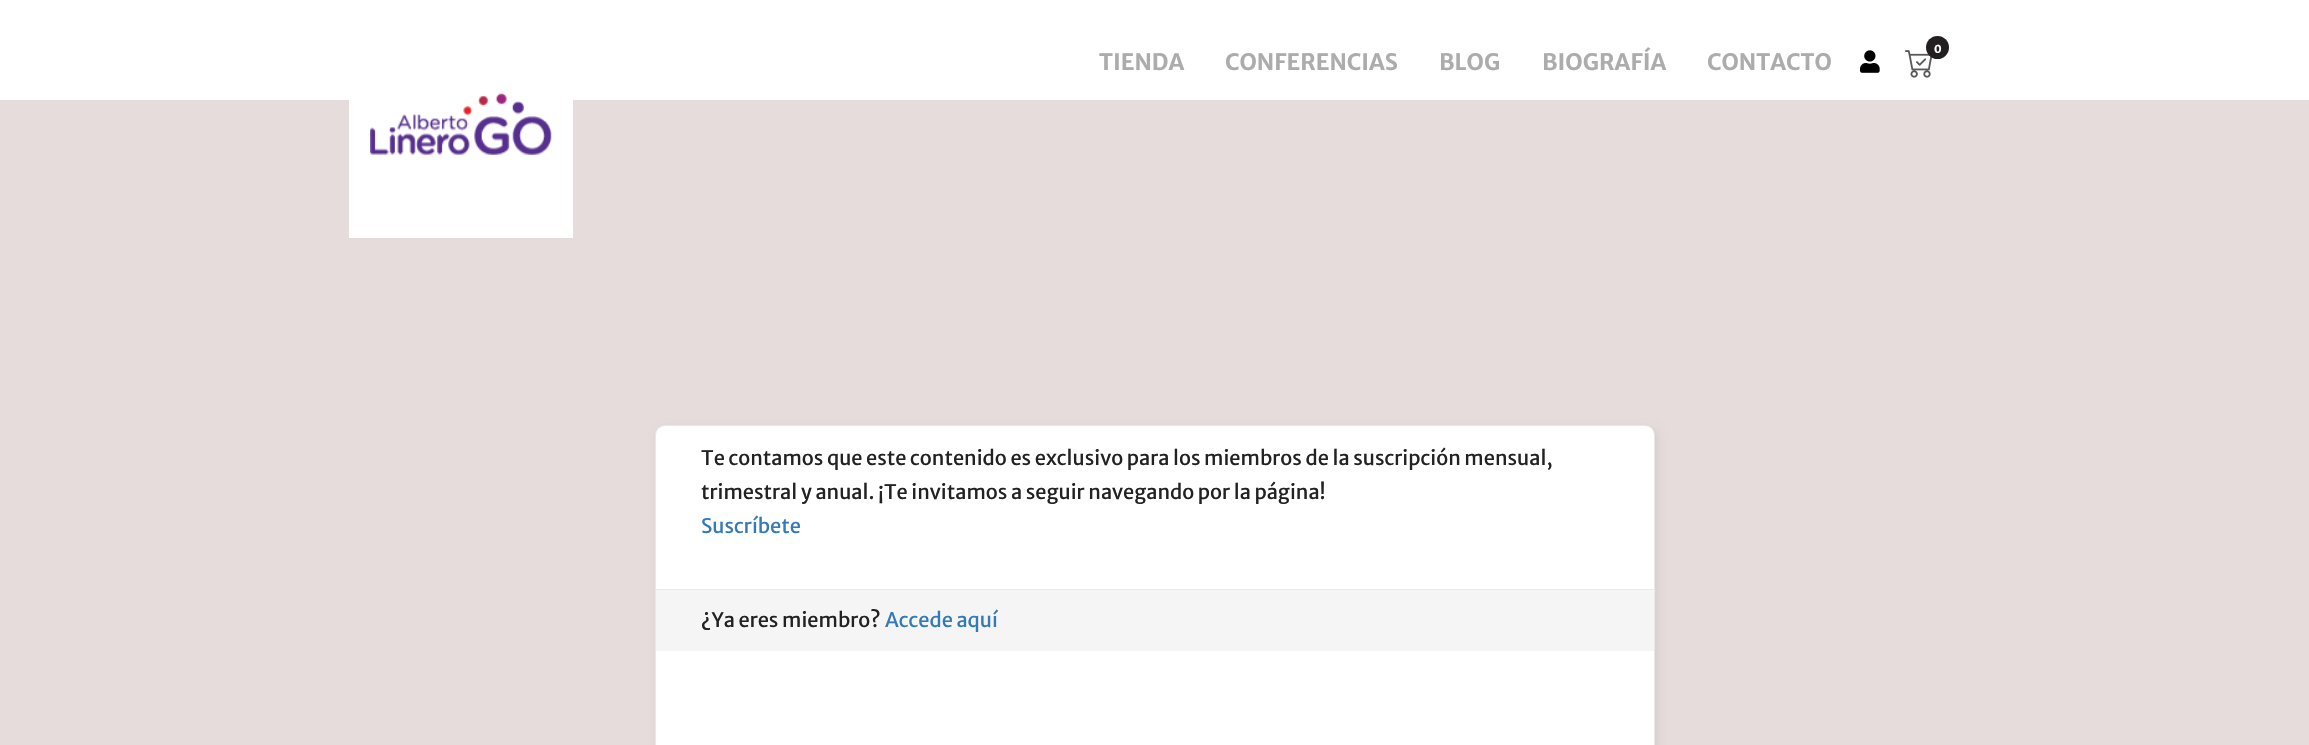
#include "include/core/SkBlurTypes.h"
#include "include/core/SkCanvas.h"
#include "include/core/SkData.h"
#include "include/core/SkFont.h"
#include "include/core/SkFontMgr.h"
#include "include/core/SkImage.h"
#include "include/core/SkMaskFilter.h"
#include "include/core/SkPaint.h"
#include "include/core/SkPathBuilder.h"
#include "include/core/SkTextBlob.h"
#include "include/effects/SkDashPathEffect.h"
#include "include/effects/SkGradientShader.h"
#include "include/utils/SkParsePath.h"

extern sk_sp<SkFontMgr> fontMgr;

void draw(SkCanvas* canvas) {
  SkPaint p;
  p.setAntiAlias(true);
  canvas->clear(SK_ColorWHITE);
  canvas->drawImageRect(SkImages::DeferredFromEncodedData(SkData::MakeFromFileName("images/1.png")), SkRect::MakeLTRB(1905, 50, 1932, 78), SkSamplingOptions());
  p.setColor(SkColorSetRGB(35, 31, 32));
  canvas->drawCircle(1937.5f, 47.5f, 11.5f, p);
  canvas->drawImageRect(SkImages::DeferredFromEncodedData(SkData::MakeFromFileName("images/2.png")), SkRect::MakeLTRB(1860, 50, 1880, 73), SkSamplingOptions());
  p.setColor(SkColorSetRGB(231, 220, 220));
  canvas->drawRect(SkRect::MakeLTRB(0, 100, 2309, 745), p);
  p.setColor(SK_ColorWHITE);
  canvas->drawRect(SkRect::MakeLTRB(349, 100, 573, 238), p);
  canvas->drawImageRect(SkImages::DeferredFromEncodedData(SkData::MakeFromFileName("images/3.png")), SkRect::MakeLTRB(370, 93, 552, 155), SkSamplingOptions());
  p.setColor(SkColorSetARGB(18, 0, 0, 0));
  p.setMaskFilter(SkMaskFilter::MakeBlur(kNormal_SkBlurStyle, 4.5f));
  canvas->drawRoundRect(SkRect::MakeLTRB(658, 428, 1658, 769), 10, 10, p);
  p.setMaskFilter(nullptr);
  p.setColor(SK_ColorWHITE);
  canvas->drawRoundRect(SkRect::MakeLTRB(655.5f, 425.5f, 1654.5f, 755.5f), 9.5f, 9.5f, p);
  p.setStyle(SkPaint::kStroke_Style);
  p.setStrokeWidth(1);
  p.setColor(SkColorSetRGB(232, 232, 232));
  canvas->drawRoundRect(SkRect::MakeLTRB(655.5f, 425.5f, 1654.5f, 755.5f), 9.5f, 9.5f, p);
  p.setStyle(SkPaint::kFill_Style);
  p.setColor(SkColorSetRGB(245, 245, 245));
  canvas->drawRect(SkRect::MakeLTRB(656, 590, 1654, 651), p);
  p.setColor(SkColorSetRGB(232, 232, 232));
  canvas->drawRect(SkRect::MakeLTRB(656, 589, 1654, 590), p);
  SkFont font1(fontMgr->matchFamilyStyle("Merriweather Sans", SkFontStyle::Bold()), 22.5f);
  font1.setSubpixel(true);
  p.setColor(SkColorSetRGB(172, 172, 173));
  canvas->drawString("TIENDA", 1099, 70, font1, p);
  canvas->drawString("CONFERENCIAS", 1225, 70, font1, p);
  canvas->drawString("BLOG", 1439, 70, font1, p);
  canvas->drawString("BIOGRAFÍA", 1542, 70, font1, p);
  canvas->drawString("CONTACTO", 1707, 70, font1, p);
  SkFont font2(fontMgr->matchFamilyStyle("Merriweather Sans", SkFontStyle::Bold()), 11);
  font2.setSubpixel(true);
  p.setColor(SK_ColorWHITE);
  canvas->drawString("0", 1934, 53, font2, p);
  SkFont font3(fontMgr->matchFamilyStyle("Merriweather Sans", SkFontStyle::Normal()), 20);
  font3.setSubpixel(true);
  p.setColor(SkColorSetRGB(34, 34, 34));
  canvas->drawString("Te contamos que este contenido es exclusivo para los miembros de la suscripción mensual,", 701, 465, font3, p);
  canvas->drawString("trimestral y anual. ¡Te invitamos a seguir navegando por la página!", 701, 499, font3, p);
  p.setColor(SkColorSetRGB(51, 122, 183));
  canvas->drawString("Suscríbete", 701, 533, font3, p);
  p.setColor(SkColorSetRGB(34, 34, 34));
  canvas->drawString("¿Ya eres miembro?", 701, 627, font3, p);
  p.setColor(SkColorSetRGB(51, 122, 183));
  canvas->drawString("Accede aquí", 885, 627, font3, p);
}
